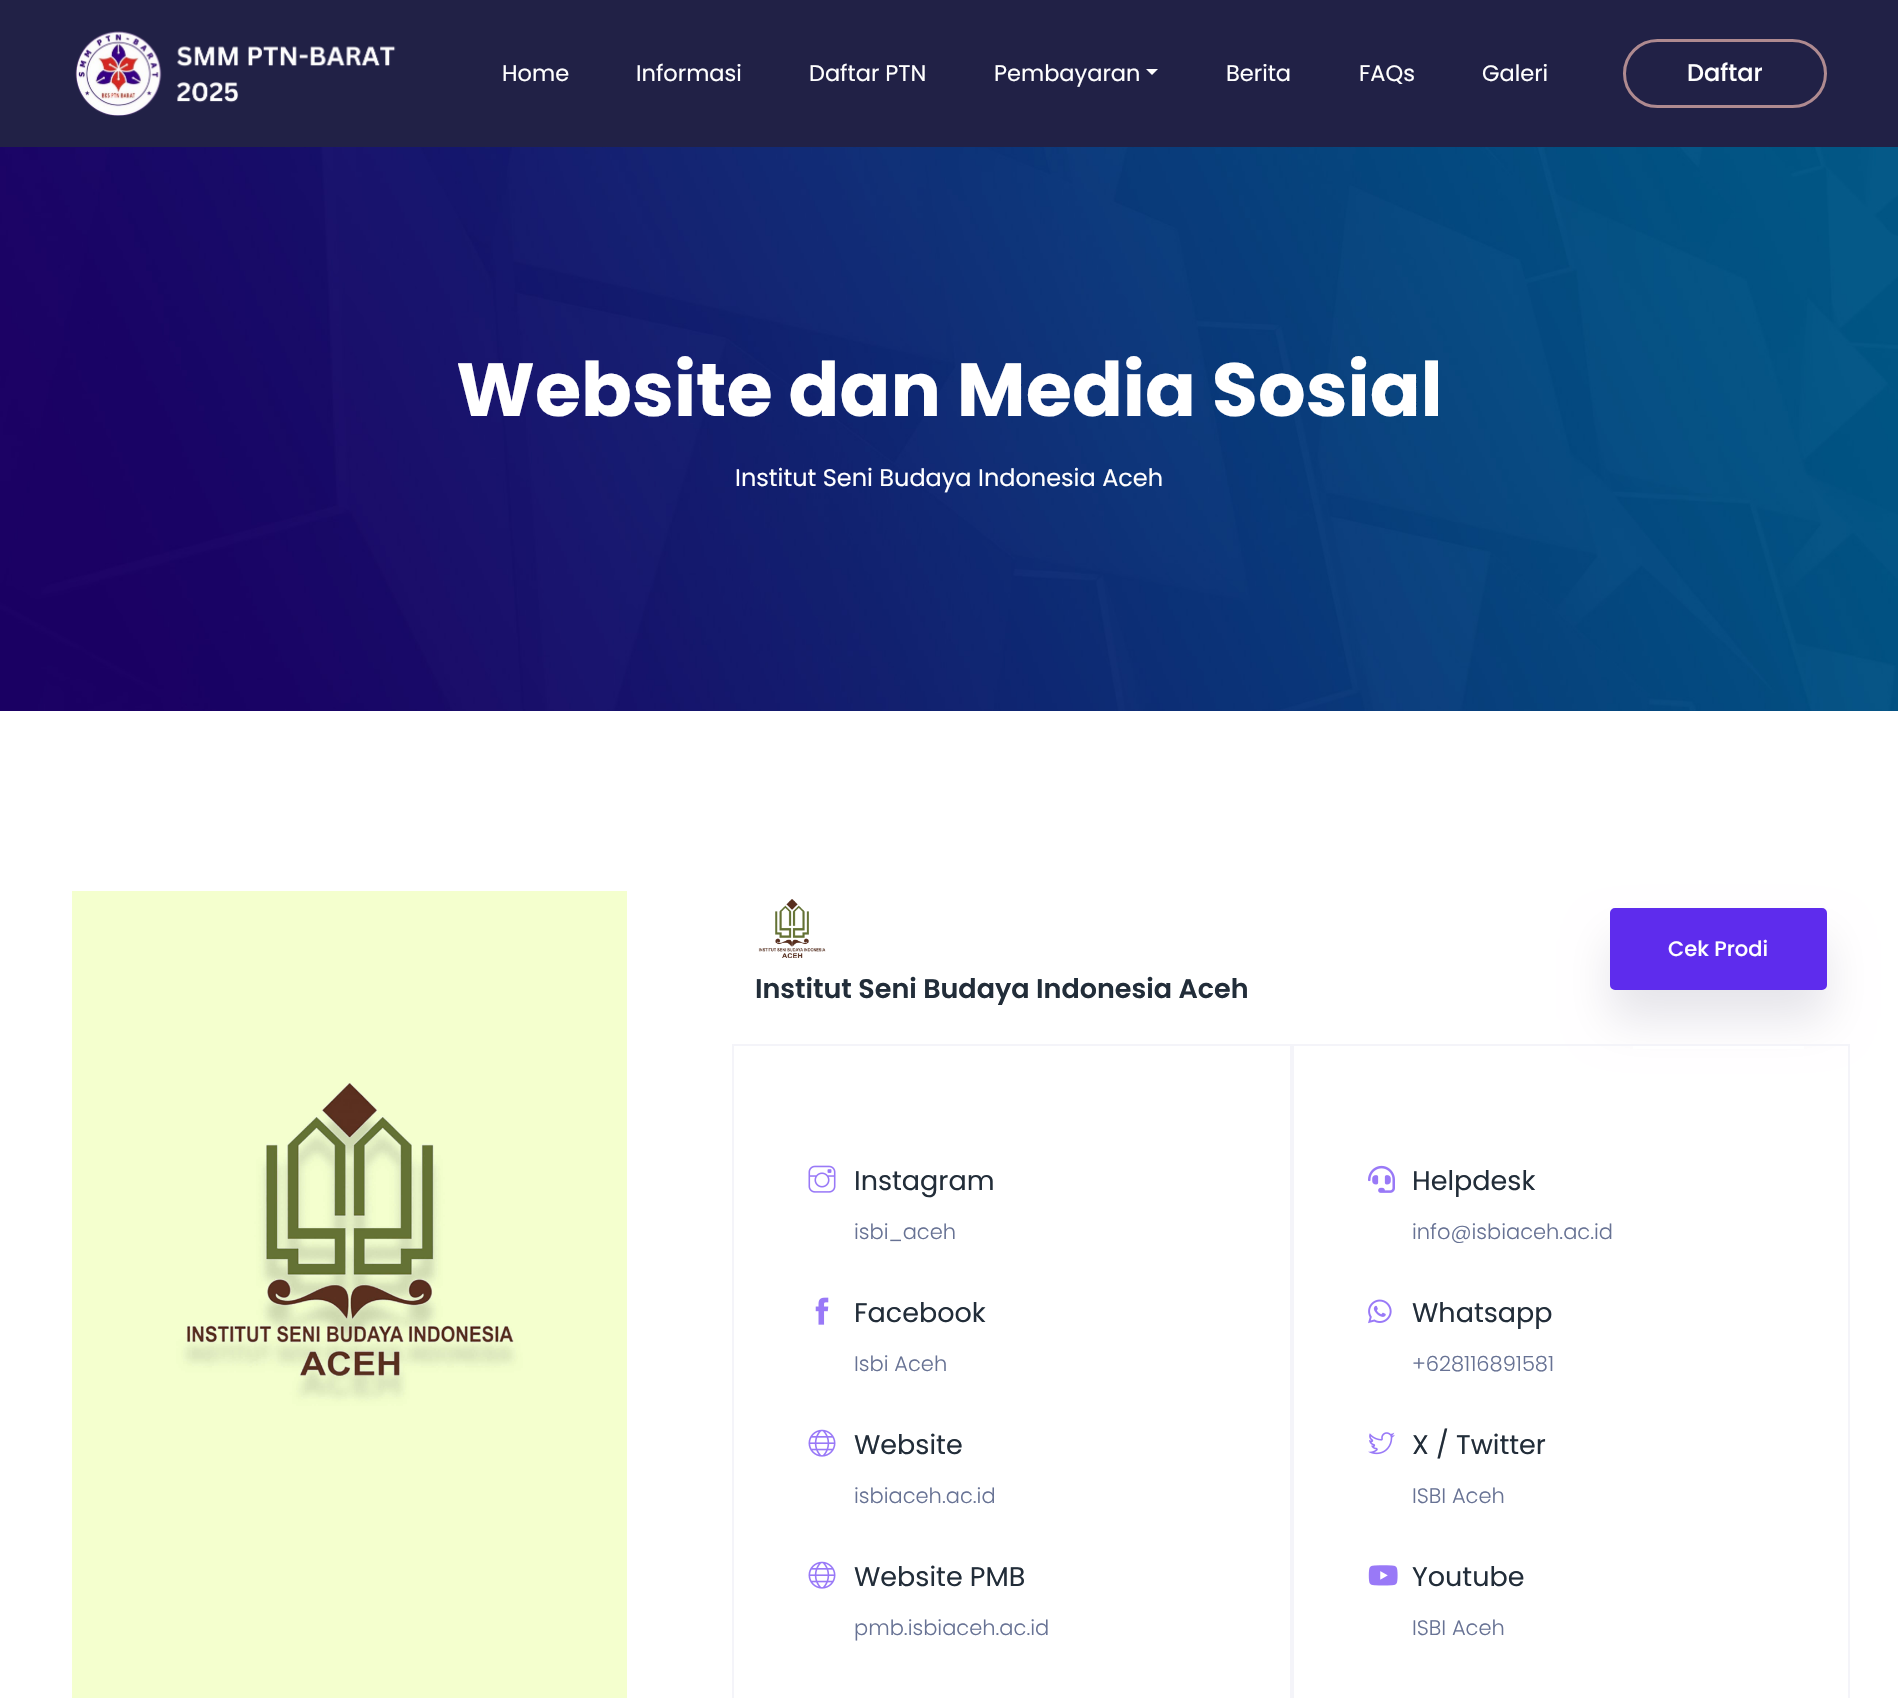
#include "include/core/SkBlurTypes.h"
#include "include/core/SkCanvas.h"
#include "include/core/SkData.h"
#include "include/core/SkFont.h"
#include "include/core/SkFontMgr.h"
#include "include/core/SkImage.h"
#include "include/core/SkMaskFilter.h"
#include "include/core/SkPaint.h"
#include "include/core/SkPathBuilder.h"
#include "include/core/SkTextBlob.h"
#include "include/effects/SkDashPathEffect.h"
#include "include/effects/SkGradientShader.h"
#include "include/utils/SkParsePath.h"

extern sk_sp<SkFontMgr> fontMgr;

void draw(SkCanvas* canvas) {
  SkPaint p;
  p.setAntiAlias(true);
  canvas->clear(SK_ColorWHITE);
  p.setColor(SkColorSetRGB(33, 33, 70));
  canvas->drawRect(SkRect::MakeLTRB(0, 0, 1898, 147), p);
  canvas->drawImageRect(SkImages::DeferredFromEncodedData(SkData::MakeFromFileName("images/1.png")), SkRect::MakeLTRB(75, 31, 396, 116), SkSamplingOptions());
  p.setColor(SK_ColorWHITE);
  canvas->drawPath(SkPathBuilder().moveTo(1146, 69).lineTo(1158, 69).lineTo(1152, 75).close().detach(), p);
  p.setStyle(SkPaint::kStroke_Style);
  p.setStrokeWidth(3);
  p.setColor(SkColorSetRGB(175, 138, 144));
  canvas->drawRoundRect(SkRect::MakeLTRB(1624.5f, 40.5f, 1825.5f, 106.5f), 33, 33, p);
  canvas->drawImageRect(SkImages::DeferredFromEncodedData(SkData::MakeFromFileName("images/2.png")), SkRect::MakeLTRB(0, 147, 1898, 711), SkSamplingOptions());
  canvas->drawImageRect(SkImages::DeferredFromEncodedData(SkData::MakeFromFileName("images/3.png")), SkRect::MakeLTRB(72, 891, 627, 1698), SkSamplingOptions());
  p.setStyle(SkPaint::kFill_Style);
  p.setColor(SkColorSetARGB(26, 12, 0, 46));
  p.setMaskFilter(SkMaskFilter::MakeBlur(kNormal_SkBlurStyle, 22.5f));
  canvas->drawRoundRect(SkRect::MakeLTRB(1610, 938, 1827, 1020), 5, 5, p);
  p.setMaskFilter(nullptr);
  p.setColor(SkColorSetRGB(94, 44, 237));
  canvas->drawRoundRect(SkRect::MakeLTRB(1611, 909, 1826, 989), 4, 4, p);
  p.setStyle(SkPaint::kStroke_Style);
  p.setStrokeWidth(2);
  canvas->drawRoundRect(SkRect::MakeLTRB(1611, 909, 1826, 989), 4, 4, p);
  canvas->drawImageRect(SkImages::DeferredFromEncodedData(SkData::MakeFromFileName("images/4.png")), SkRect::MakeLTRB(758, 899, 826, 958), SkSamplingOptions());
  p.setColor(SkColorSetRGB(244, 244, 249));
  canvas->drawRect(SkRect::MakeLTRB(733, 1045, 1291, 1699), p);
  canvas->drawImageRect(SkImages::DeferredFromEncodedData(SkData::MakeFromFileName("images/5.png")), SkRect::MakeLTRB(808, 1165, 836, 1193), SkSamplingOptions());
  canvas->drawImageRect(SkImages::DeferredFromEncodedData(SkData::MakeFromFileName("images/6.png")), SkRect::MakeLTRB(815, 1297, 829, 1325), SkSamplingOptions());
  canvas->drawImageRect(SkImages::DeferredFromEncodedData(SkData::MakeFromFileName("images/7.png")), SkRect::MakeLTRB(808, 1429, 836, 1457), SkSamplingOptions());
  canvas->drawImageRect(SkImages::DeferredFromEncodedData(SkData::MakeFromFileName("images/7.png")), SkRect::MakeLTRB(808, 1561, 836, 1589), SkSamplingOptions());
  p.setStyle(SkPaint::kFill_Style);
  p.setColor(SK_ColorWHITE);
  canvas->drawRect(SkRect::MakeLTRB(1633, 1046, 1804, 1049), p);
  p.setStyle(SkPaint::kStroke_Style);
  p.setColor(SkColorSetRGB(244, 244, 249));
  canvas->drawRect(SkRect::MakeLTRB(1293, 1045, 1849, 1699), p);
  canvas->drawImageRect(SkImages::DeferredFromEncodedData(SkData::MakeFromFileName("images/8.png")), SkRect::MakeLTRB(1368, 1165, 1395, 1193), SkSamplingOptions());
  canvas->drawImageRect(SkImages::DeferredFromEncodedData(SkData::MakeFromFileName("images/9.png")), SkRect::MakeLTRB(1368, 1299, 1392, 1324), SkSamplingOptions());
  canvas->drawImageRect(SkImages::DeferredFromEncodedData(SkData::MakeFromFileName("images/10.png")), SkRect::MakeLTRB(1368, 1432, 1395, 1455), SkSamplingOptions());
  canvas->drawImageRect(SkImages::DeferredFromEncodedData(SkData::MakeFromFileName("images/11.png")), SkRect::MakeLTRB(1368, 1565, 1398, 1586), SkSamplingOptions());
  SkFont font1(fontMgr->matchFamilyStyle("Poppins", SkFontStyle::Normal()), 22.5f);
  font1.setSubpixel(true);
  p.setStyle(SkPaint::kFill_Style);
  p.setColor(SK_ColorWHITE);
  canvas->drawString("Home", 502, 81, font1, p);
  canvas->drawString("Informasi", 636, 81, font1, p);
  canvas->drawString("Daftar PTN", 809, 81, font1, p);
  canvas->drawString("Pembayaran", 994, 81, font1, p);
  canvas->drawString("Berita", 1226, 81, font1, p);
  canvas->drawString("FAQs", 1359, 81, font1, p);
  canvas->drawString("Galeri", 1482, 81, font1, p);
  SkFont font2(fontMgr->matchFamilyStyle("Poppins", SkFontStyle(500, SkFontStyle::kNormal_Width, SkFontStyle::kUpright_Slant)), 24);
  font2.setSubpixel(true);
  canvas->drawString("Daftar", 1687, 81, font2, p);
  SkFont font3(fontMgr->matchFamilyStyle("Poppins", SkFontStyle::Bold()), 75);
  font3.setSubpixel(true);
  canvas->drawString("Website dan Media Sosial", 456, 416, font3, p);
  SkFont font4(fontMgr->matchFamilyStyle("Poppins", SkFontStyle::Normal()), 24);
  font4.setSubpixel(true);
  canvas->drawString("Institut Seni Budaya Indonesia Aceh", 735, 486, font4, p);
  SkFont font5(fontMgr->matchFamilyStyle("Poppins", SkFontStyle(500, SkFontStyle::kNormal_Width, SkFontStyle::kUpright_Slant)), 21);
  font5.setSubpixel(true);
  canvas->drawString("Cek Prodi", 1668, 956, font5, p);
  SkFont font6(fontMgr->matchFamilyStyle("Poppins", SkFontStyle(600, SkFontStyle::kNormal_Width, SkFontStyle::kUpright_Slant)), 27);
  font6.setSubpixel(true);
  p.setColor(SkColorSetRGB(34, 45, 57));
  canvas->drawString("Institut Seni Budaya Indonesia Aceh", 755, 998, font6, p);
  SkFont font7(fontMgr->matchFamilyStyle("Poppins", SkFontStyle::Normal()), 27);
  font7.setSubpixel(true);
  canvas->drawString("Instagram", 854, 1190, font7, p);
  SkFont font8(fontMgr->matchFamilyStyle("Poppins", SkFontStyle(300, SkFontStyle::kNormal_Width, SkFontStyle::kUpright_Slant)), 21);
  font8.setSubpixel(true);
  p.setColor(SkColorSetRGB(103, 114, 148));
  canvas->drawString("isbi_aceh", 854, 1239, font8, p);
  p.setColor(SkColorSetRGB(34, 45, 57));
  canvas->drawString("Facebook", 854, 1322, font7, p);
  p.setColor(SkColorSetRGB(103, 114, 148));
  canvas->drawString("Isbi Aceh", 854, 1371, font8, p);
  p.setColor(SkColorSetRGB(34, 45, 57));
  canvas->drawString("Website", 854, 1454, font7, p);
  p.setColor(SkColorSetRGB(103, 114, 148));
  canvas->drawString("isbiaceh.ac.id", 854, 1503, font8, p);
  p.setColor(SkColorSetRGB(34, 45, 57));
  canvas->drawString("Website PMB", 854, 1586, font7, p);
  p.setColor(SkColorSetRGB(103, 114, 148));
  canvas->drawString("pmb.isbiaceh.ac.id", 854, 1635, font8, p);
  p.setColor(SkColorSetRGB(34, 45, 57));
  canvas->drawString("Helpdesk", 1412, 1190, font7, p);
  p.setColor(SkColorSetRGB(103, 114, 148));
  canvas->drawString("info@isbiaceh.ac.id", 1412, 1239, font8, p);
  p.setColor(SkColorSetRGB(34, 45, 57));
  canvas->drawString("Whatsapp", 1412, 1322, font7, p);
  p.setColor(SkColorSetRGB(103, 114, 148));
  canvas->drawString("+628116891581", 1412, 1371, font8, p);
  p.setColor(SkColorSetRGB(34, 45, 57));
  canvas->drawString("X / Twitter", 1412, 1454, font7, p);
  p.setColor(SkColorSetRGB(103, 114, 148));
  canvas->drawString("ISBI Aceh", 1412, 1503, font8, p);
  p.setColor(SkColorSetRGB(34, 45, 57));
  canvas->drawString("Youtube", 1412, 1586, font7, p);
  p.setColor(SkColorSetRGB(103, 114, 148));
  canvas->drawString("ISBI Aceh", 1412, 1635, font8, p);
}
